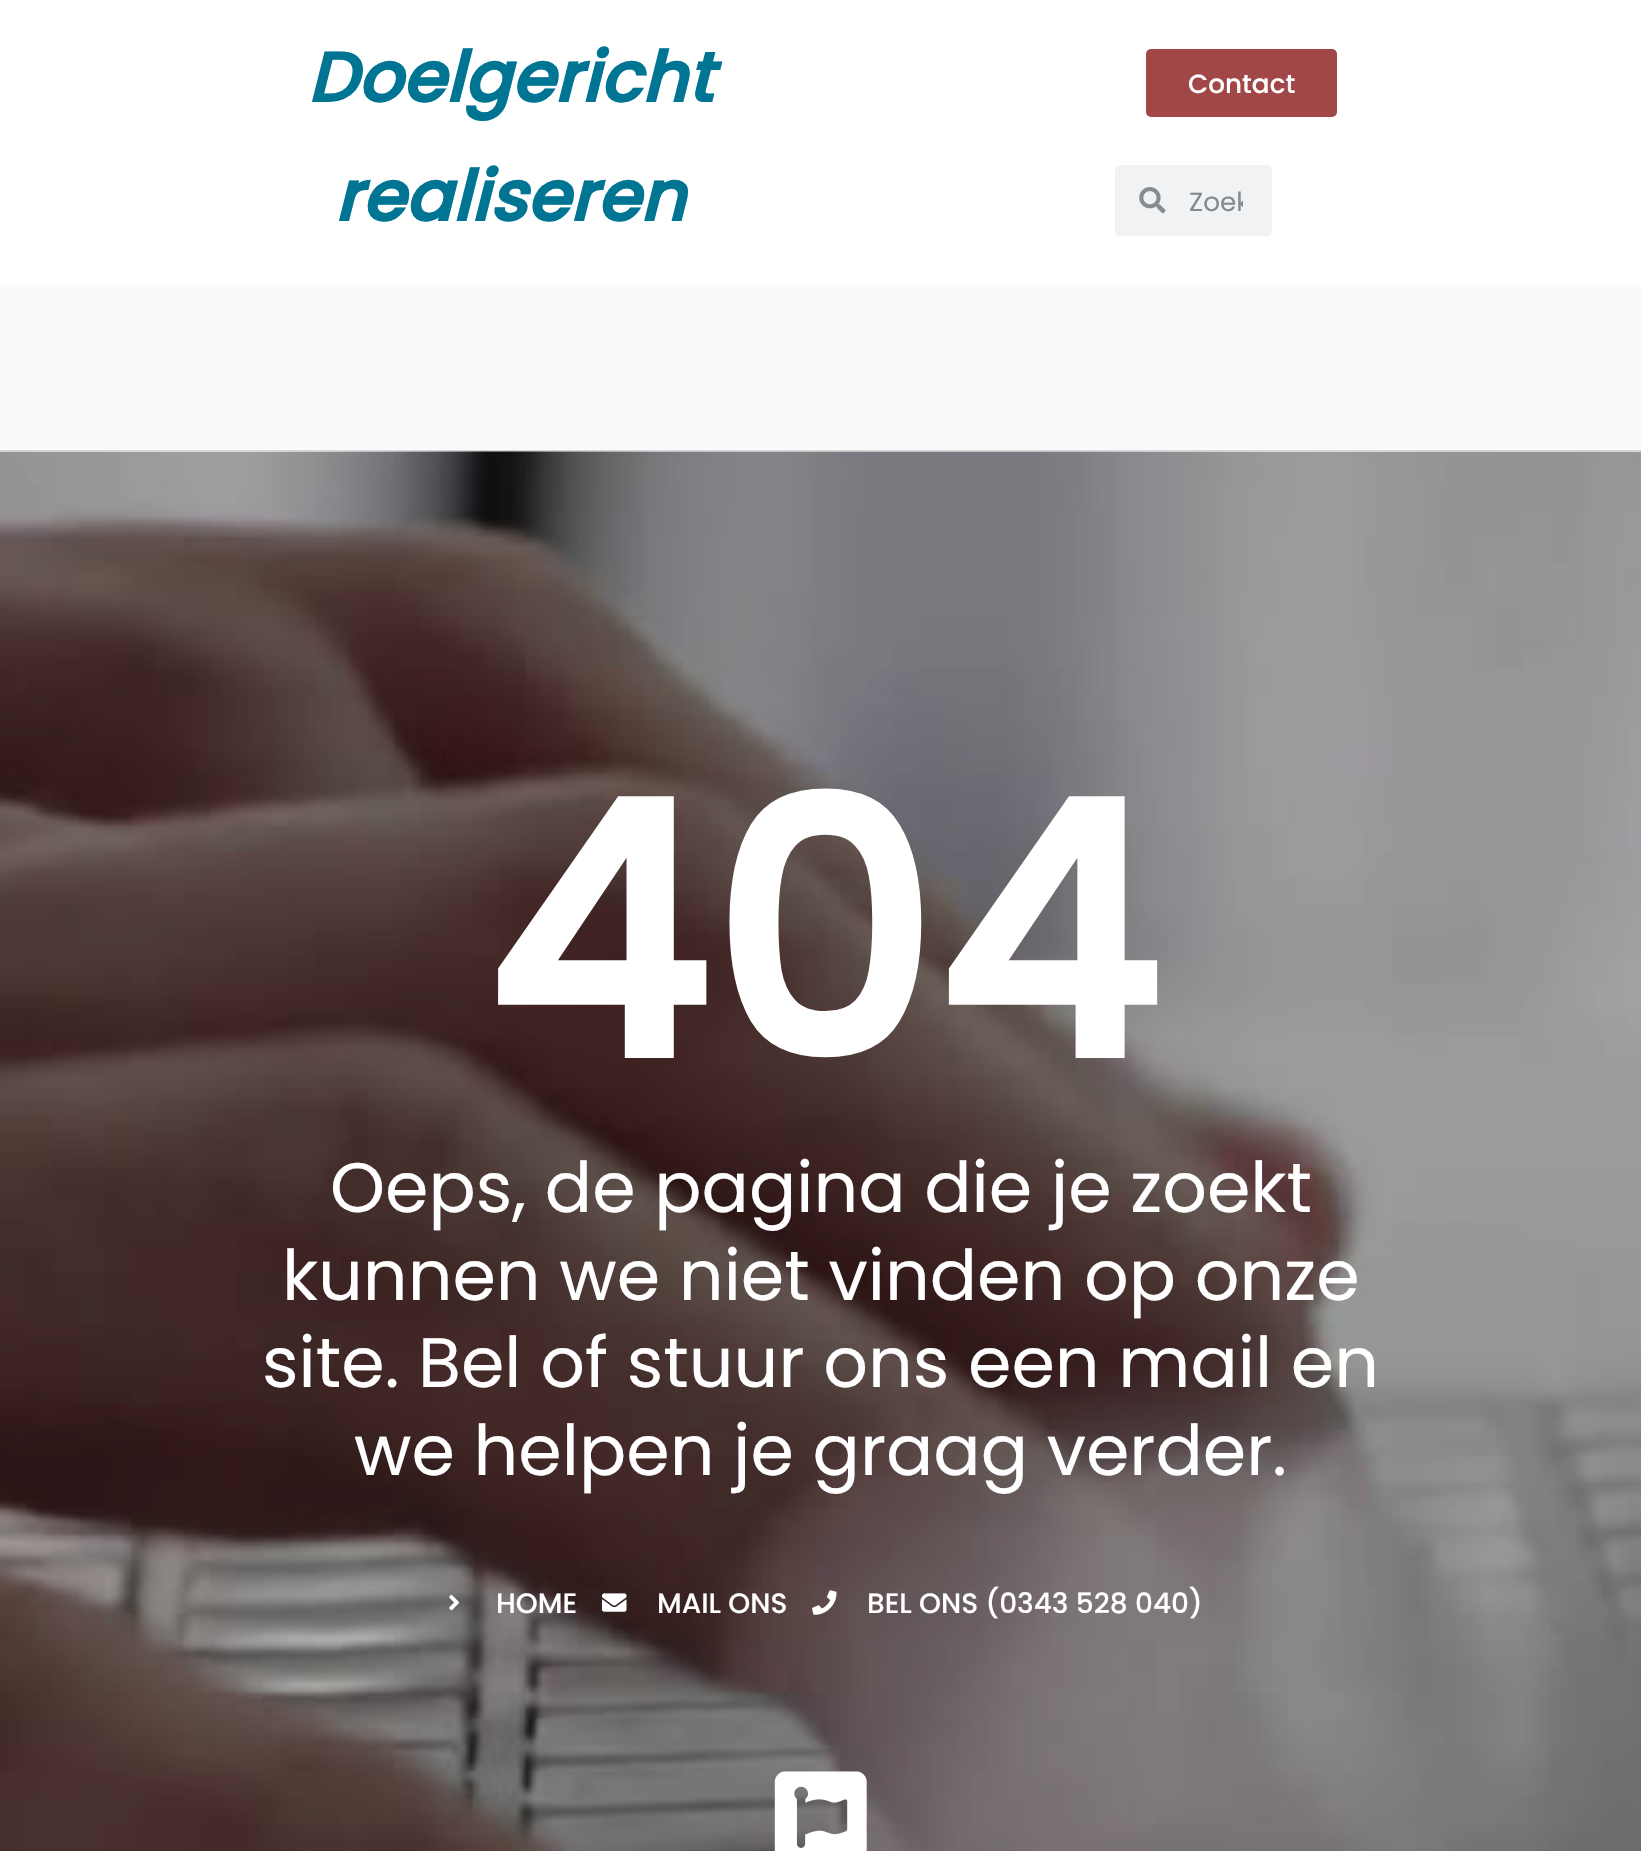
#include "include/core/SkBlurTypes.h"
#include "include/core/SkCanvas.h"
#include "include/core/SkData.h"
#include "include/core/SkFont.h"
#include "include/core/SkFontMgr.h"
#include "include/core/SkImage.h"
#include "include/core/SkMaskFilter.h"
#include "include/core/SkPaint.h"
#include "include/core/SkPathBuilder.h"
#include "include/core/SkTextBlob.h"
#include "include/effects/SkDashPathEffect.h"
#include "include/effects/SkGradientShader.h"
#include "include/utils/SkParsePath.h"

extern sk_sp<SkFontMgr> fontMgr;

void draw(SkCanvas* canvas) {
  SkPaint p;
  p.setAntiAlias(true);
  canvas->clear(SK_ColorWHITE);
  p.setColor(SkColorSetRGB(162, 71, 71));
  canvas->drawRoundRect(SkRect::MakeLTRB(1146, 49, 1337, 117), 5, 5, p);
  p.setColor(SkColorSetRGB(241, 242, 243));
  canvas->drawRoundRect(SkRect::MakeLTRB(1115, 165, 1272, 236), 5, 5, p);
  canvas->drawImageRect(SkImages::DeferredFromEncodedData(SkData::MakeFromFileName("images/1.png")), SkRect::MakeLTRB(1139, 187, 1166, 214), SkSamplingOptions());
  p.setColor(SkColorSetRGB(250, 250, 250));
  canvas->drawRect(SkRect::MakeLTRB(0, 287, 1641, 450), p);
  p.setColor(SkColorSetRGB(214, 214, 214));
  canvas->drawRect(SkRect::MakeLTRB(0, 450, 1641, 452), p);
  canvas->drawImageRect(SkImages::DeferredFromEncodedData(SkData::MakeFromFileName("images/2.png")), SkRect::MakeLTRB(0, 451, 1641, 1851), SkSamplingOptions());
  canvas->drawImageRect(SkImages::DeferredFromEncodedData(SkData::MakeFromFileName("images/3.png")), SkRect::MakeLTRB(449, 1594, 459, 1611), SkSamplingOptions());
  canvas->drawImageRect(SkImages::DeferredFromEncodedData(SkData::MakeFromFileName("images/4.png")), SkRect::MakeLTRB(602, 1593, 627, 1612), SkSamplingOptions());
  canvas->drawImageRect(SkImages::DeferredFromEncodedData(SkData::MakeFromFileName("images/5.png")), SkRect::MakeLTRB(812, 1590, 837, 1615), SkSamplingOptions());
  canvas->drawImageRect(SkImages::DeferredFromEncodedData(SkData::MakeFromFileName("images/6.png")), SkRect::MakeLTRB(774, 1771, 867, 1851), SkSamplingOptions());
  SkFont font1(fontMgr->matchFamilyStyle("Poppins", SkFontStyle::BoldItalic()), 70);
  font1.setSubpixel(true);
  p.setColor(SkColorSetRGB(0, 116, 147));
  canvas->drawString("Doelgericht", 307, 102, font1, p);
  canvas->drawString("realiseren", 334, 221, font1, p);
  SkFont font2(fontMgr->matchFamilyStyle("Poppins", SkFontStyle(500, SkFontStyle::kNormal_Width, SkFontStyle::kUpright_Slant)), 26.25f);
  font2.setSubpixel(true);
  p.setColor(SK_ColorWHITE);
  canvas->drawString("Contact", 1188, 93, font2, p);
  canvas->save();
  canvas->clipRect(SkRect::MakeLTRB(1188, 180, 1243, 221));
  SkFont font3(fontMgr->matchFamilyStyle("Poppins", SkFontStyle::Normal()), 26.25f);
  font3.setSubpixel(true);
  p.setColor(SkColorSetRGB(134, 138, 142));
  canvas->drawString("Zoek", 1189, 211, font3, p);
  canvas->restore();
  SkFont font4(fontMgr->matchFamilyStyle("Poppins", SkFontStyle::Bold()), 350);
  font4.setSubpixel(true);
  p.setColor(SK_ColorWHITE);
  canvas->drawString("404", 482, 1058, font4, p);
  SkFont font5(fontMgr->matchFamilyStyle("Poppins", SkFontStyle::Normal()), 70);
  font5.setSubpixel(true);
  canvas->drawString("Oeps, de pagina die je zoekt", 330, 1212, font5, p);
  canvas->drawString("kunnen we niet vinden op onze", 282, 1300, font5, p);
  canvas->drawString("site. Bel of stuur ons een mail en", 262, 1387, font5, p);
  canvas->drawString("we helpen je graag verder.", 354, 1475, font5, p);
  SkFont font6(fontMgr->matchFamilyStyle("Poppins", SkFontStyle(500, SkFontStyle::kNormal_Width, SkFontStyle::kUpright_Slant)), 28);
  font6.setSubpixel(true);
  canvas->drawString("HOME", 496, 1613, font6, p);
  canvas->drawString("MAIL ONS", 657, 1613, font6, p);
  canvas->drawString("BEL ONS (0343 528 040)", 867, 1613, font6, p);
}
